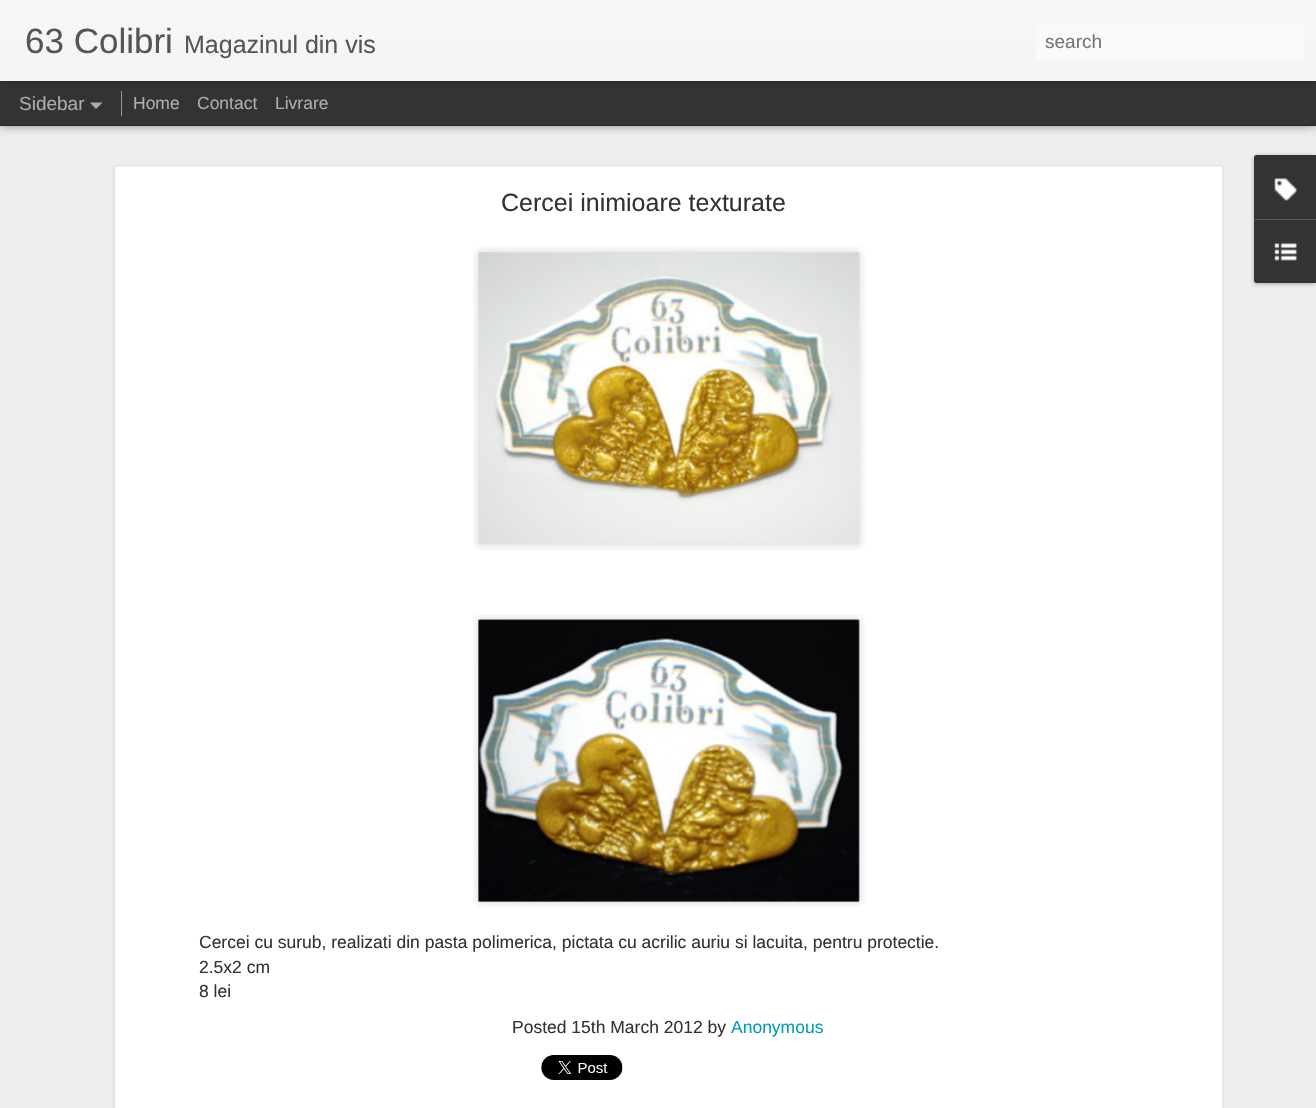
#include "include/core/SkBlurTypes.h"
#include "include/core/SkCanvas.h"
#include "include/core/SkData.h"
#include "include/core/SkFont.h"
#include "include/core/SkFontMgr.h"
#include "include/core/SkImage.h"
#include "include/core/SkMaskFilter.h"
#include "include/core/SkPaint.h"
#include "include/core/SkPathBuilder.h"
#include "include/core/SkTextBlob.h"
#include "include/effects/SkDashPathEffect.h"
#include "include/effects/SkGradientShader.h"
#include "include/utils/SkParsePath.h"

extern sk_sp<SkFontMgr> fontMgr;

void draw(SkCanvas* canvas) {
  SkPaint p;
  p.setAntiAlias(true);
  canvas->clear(SkColorSetRGB(51, 51, 51));
  p.setColor(SkColorSetRGB(238, 238, 238));
  canvas->drawRect(SkRect::MakeLTRB(0, 126, 1316, 1108), p);
  p.setColor(SkColorSetARGB(128, 0, 0, 0));
  p.setMaskFilter(SkMaskFilter::MakeBlur(kNormal_SkBlurStyle, 5));
  canvas->drawRect(SkRect::MakeLTRB(0, 81, 1316, 125), p);
  p.setMaskFilter(nullptr);
  p.setColor(SkColorSetRGB(51, 51, 51));
  canvas->drawRect(SkRect::MakeLTRB(0, 81, 1316, 125), p);
  p.setColor(SkColorSetARGB(77, 0, 0, 0));
  p.setMaskFilter(SkMaskFilter::MakeBlur(kNormal_SkBlurStyle, 3));
  canvas->drawRect(SkRect::MakeLTRB(0, 0, 1316, 81), p);
  p.setMaskFilter(nullptr);
  {
    const SkColor colors[] = {SkColorSetRGB(247, 247, 247), SkColorSetRGB(244, 244, 244)};
    const float stops[] = {0, 1};
    const SkPoint ends[] = {{0, 0}, {0, 81}};
    p.setShader(SkGradientShader::MakeLinear(ends, colors, stops, 2, SkTileMode::kClamp));
    p.setAlpha(255);
  }
  canvas->drawRect(SkRect::MakeLTRB(0, 0, 1316, 81), p);
  p.setShader(nullptr);
  p.setColor(SkColorSetRGB(250, 250, 250));
  canvas->drawRoundRect(SkRect::MakeLTRB(1036, 23, 1304, 60), 4, 4, p);
  p.setColor(SkColorSetRGB(173, 173, 173));
  canvas->drawPath(SkPathBuilder().moveTo(90, 102.5f).lineTo(102.5f, 102.5f).lineTo(96, 109).close().detach(), p);
  p.setColor(SkColorSetRGB(153, 153, 153));
  canvas->drawRect(SkRect::MakeLTRB(121, 91, 122, 116), p);
  p.setColor(SK_ColorWHITE);
  canvas->drawRect(SkRect::MakeLTRB(113, 164, 1225, 1108), p);
  canvas->drawImageRect(SkImages::DeferredFromEncodedData(SkData::MakeFromFileName("images/1.png")), SkRect::MakeLTRB(112, 164, 1225, 1108), SkSamplingOptions());
  canvas->drawImageRect(SkImages::DeferredFromEncodedData(SkData::MakeFromFileName("images/2.png")), SkRect::MakeLTRB(473, 246, 865, 550), SkSamplingOptions());
  canvas->drawImageRect(SkImages::DeferredFromEncodedData(SkData::MakeFromFileName("images/3.png")), SkRect::MakeLTRB(478, 252, 860, 498), SkSamplingOptions());
  canvas->drawImageRect(SkImages::DeferredFromEncodedData(SkData::MakeFromFileName("images/4.png")), SkRect::MakeLTRB(473, 614, 865, 907), SkSamplingOptions());
  canvas->drawImageRect(SkImages::DeferredFromEncodedData(SkData::MakeFromFileName("images/5.png")), SkRect::MakeLTRB(478, 619, 860, 903), SkSamplingOptions());
  canvas->drawImageRect(SkImages::DeferredFromEncodedData(SkData::MakeFromFileName("images/6.png")), SkRect::MakeLTRB(541, 1055, 623, 1080), SkSamplingOptions());
  p.setColor(SkColorSetARGB(77, 0, 0, 0));
  p.setMaskFilter(SkMaskFilter::MakeBlur(kNormal_SkBlurStyle, 2));
  canvas->drawRoundRect(SkRect::MakeLTRB(1254, 156, 1316, 284), 2.5f, 2.5f, p);
  p.setMaskFilter(nullptr);
  p.setColor(SkColorSetRGB(51, 51, 51));
  canvas->drawPath(SkPathBuilder().moveTo(1256.5f, 155).lineTo(1316, 155).lineTo(1316, 219).lineTo(1254, 219).lineTo(1254, 157.5f).cubicTo(1254, 156, 1255, 155, 1256.5f, 155).close().detach(), p);
  canvas->drawImageRect(SkImages::DeferredFromEncodedData(SkData::MakeFromFileName("images/7.png")), SkRect::MakeLTRB(1274, 178, 1297, 201), SkSamplingOptions());
  canvas->drawPath(SkPathBuilder().moveTo(1254, 219).lineTo(1316, 219).lineTo(1316, 283).lineTo(1256.5f, 283).cubicTo(1255, 283, 1254, 282, 1254, 280.5f).close().detach(), p);
  p.setColor(SkColorSetRGB(88, 88, 88));
  canvas->drawRect(SkRect::MakeLTRB(1254, 219, 1316, 220), p);
  canvas->drawImageRect(SkImages::DeferredFromEncodedData(SkData::MakeFromFileName("images/8.png")), SkRect::MakeLTRB(1274, 243, 1297, 261), SkSamplingOptions());
  SkFont font1(fontMgr->matchFamilyStyle("Liberation Sans", SkFontStyle::Normal()), 35);
  font1.setSubpixel(true);
  p.setColor(SkColorSetRGB(85, 85, 85));
  canvas->drawString("63 Colibri", 25, 53, font1, p);
  SkFont font2(fontMgr->matchFamilyStyle("Liberation Sans", SkFontStyle::Normal()), 25);
  font2.setSubpixel(true);
  canvas->drawString("Magazinul din vis", 184, 53, font2, p);
  SkFont font3(fontMgr->matchFamilyStyle("Liberation Sans", SkFontStyle::Normal()), 19);
  font3.setSubpixel(true);
  p.setColor(SkColorSetRGB(117, 117, 117));
  canvas->drawString("search", 1045, 48, font3, p);
  p.setColor(SkColorSetRGB(173, 173, 173));
  canvas->drawString("Sidebar", 19, 110, font3, p);
  SkFont font4(fontMgr->matchFamilyStyle("Liberation Sans", SkFontStyle::Normal()), 17.5f);
  font4.setSubpixel(true);
  canvas->drawString("Home", 133, 109, font4, p);
  canvas->drawString("Contact", 197, 109, font4, p);
  canvas->drawString("Livrare", 275, 109, font4, p);
  p.setColor(SkColorSetRGB(51, 51, 51));
  canvas->drawString("Cercei inimioare texturate", 501, 211, font2, p);
  canvas->drawString("Cercei cu surub, realizati din pasta polimerica, pictata cu acrilic auriu si lacuita, pentru protectie.", 199, 948, font4, p);
  canvas->drawString("2.5x2 cm", 199, 973, font4, p);
  canvas->drawString("8 lei", 199, 997, font4, p);
  canvas->drawString("Posted 15th March 2012 by", 512, 1033, font4, p);
  p.setColor(SkColorSetRGB(0, 158, 184));
  canvas->drawString("Anonymous", 731, 1033, font4, p);
}
